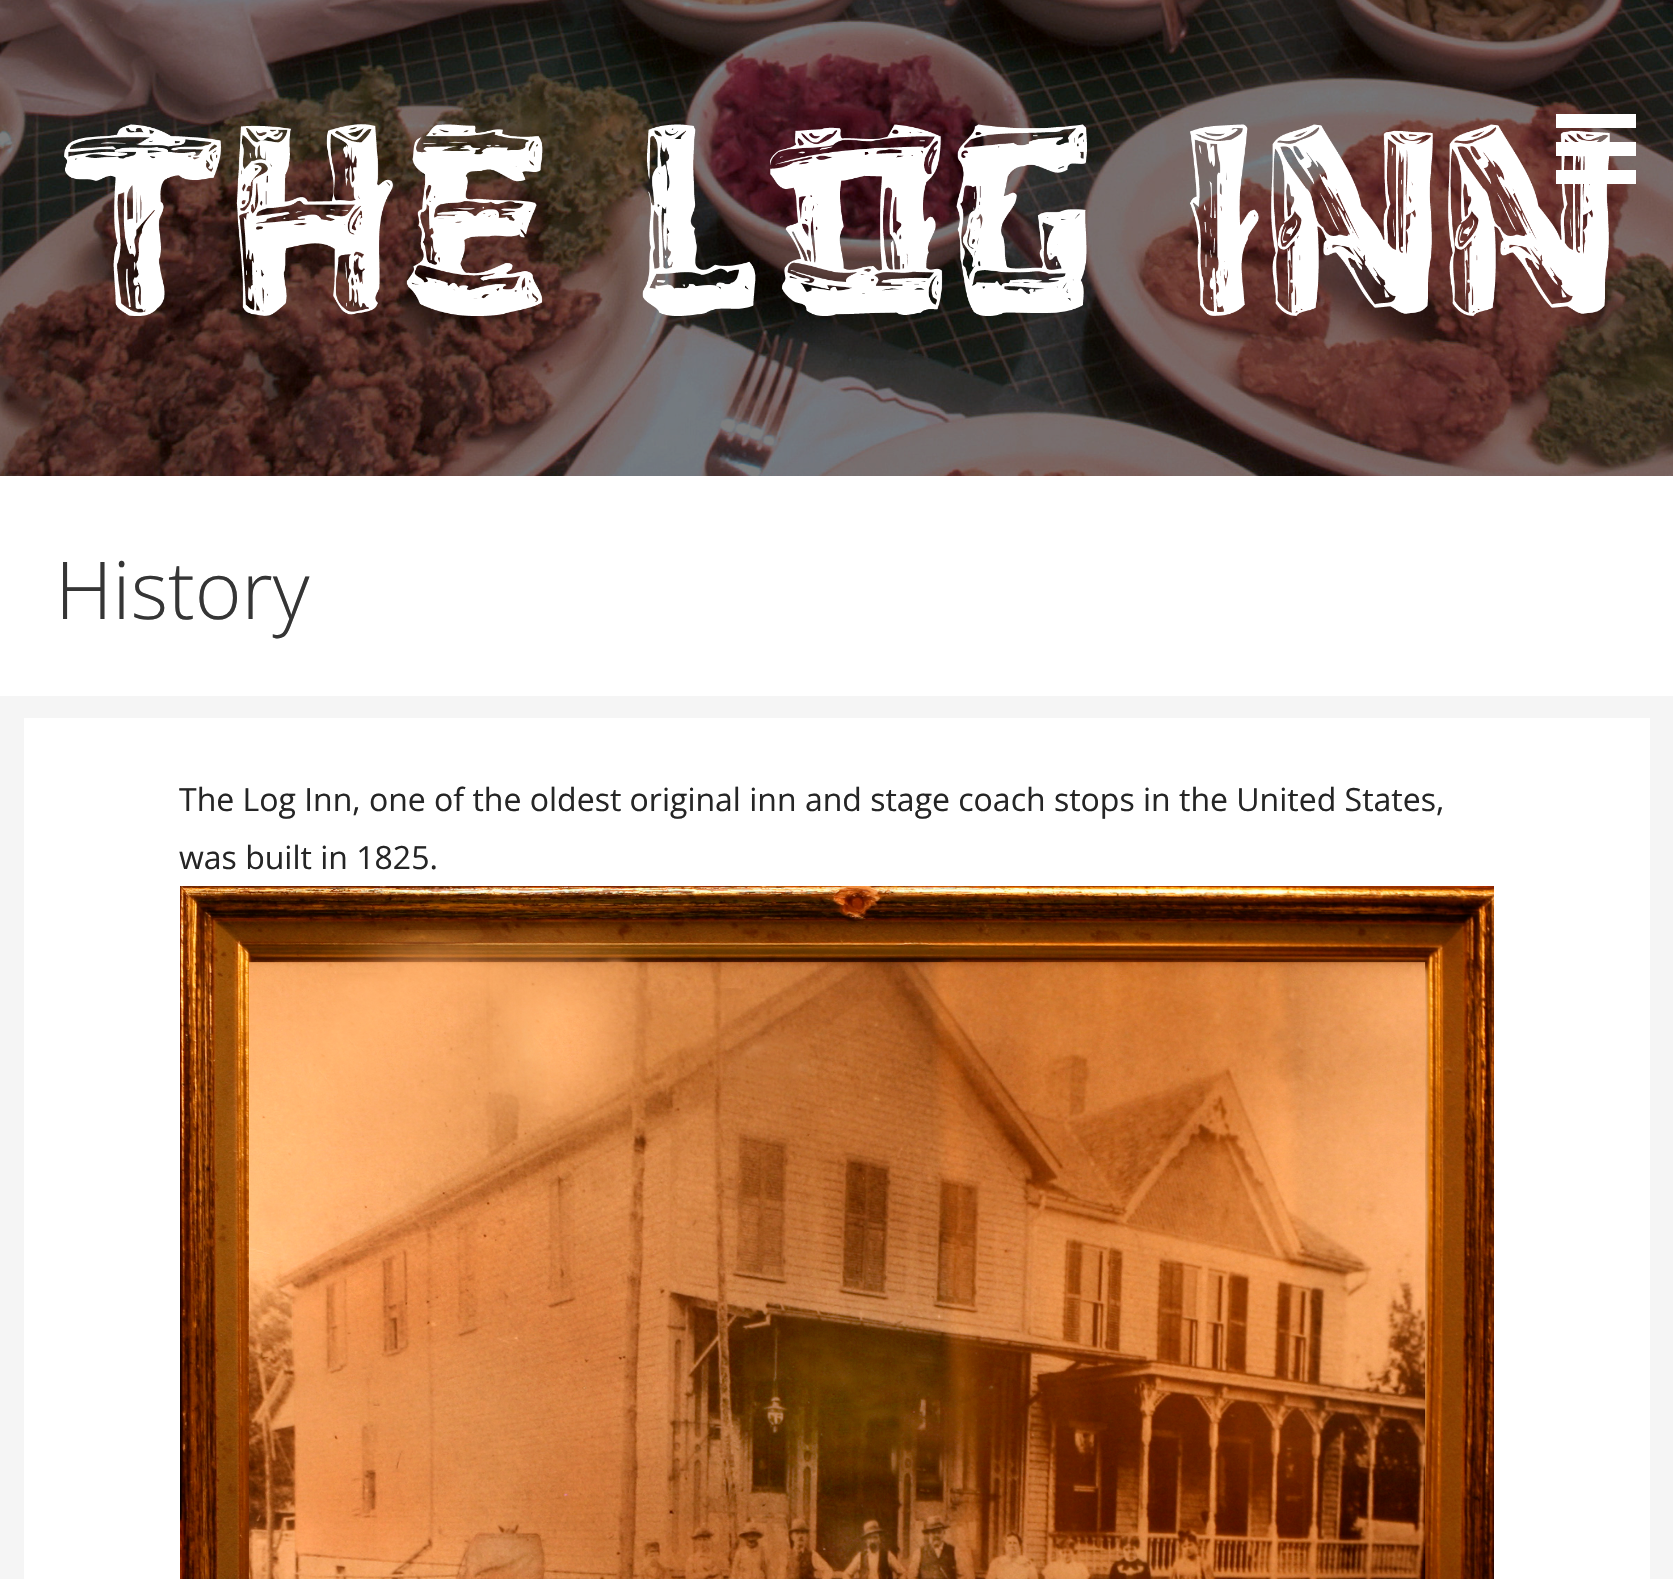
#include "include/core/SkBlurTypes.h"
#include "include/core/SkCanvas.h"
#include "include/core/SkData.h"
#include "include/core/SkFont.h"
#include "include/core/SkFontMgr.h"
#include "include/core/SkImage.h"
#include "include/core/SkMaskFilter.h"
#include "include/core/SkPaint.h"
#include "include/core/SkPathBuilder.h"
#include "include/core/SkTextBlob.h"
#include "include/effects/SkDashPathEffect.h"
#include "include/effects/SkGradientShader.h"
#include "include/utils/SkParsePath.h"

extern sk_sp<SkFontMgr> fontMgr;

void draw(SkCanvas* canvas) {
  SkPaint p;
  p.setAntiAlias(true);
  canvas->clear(SkColorSetRGB(245, 245, 245));
  canvas->drawImageRect(SkImages::DeferredFromEncodedData(SkData::MakeFromFileName("images/1.png")), SkRect::MakeLTRB(0, 0, 1673, 476), SkSamplingOptions());
  canvas->drawImageRect(SkImages::DeferredFromEncodedData(SkData::MakeFromFileName("images/2.png")), SkRect::MakeLTRB(64, 124, 1610, 316), SkSamplingOptions());
  p.setColor(SK_ColorWHITE);
  canvas->drawRect(SkRect::MakeLTRB(1556, 114, 1636, 128), p);
  canvas->drawRect(SkRect::MakeLTRB(1556, 142, 1636, 156), p);
  canvas->drawRect(SkRect::MakeLTRB(1556, 170, 1636, 184), p);
  canvas->drawRect(SkRect::MakeLTRB(0, 476, 1673, 696), p);
  canvas->drawRect(SkRect::MakeLTRB(24, 718, 1650, 1579), p);
  canvas->drawImageRect(SkImages::DeferredFromEncodedData(SkData::MakeFromFileName("images/3.png")), SkRect::MakeLTRB(180, 886, 1494, 1579), SkSamplingOptions());
  SkFont font1(fontMgr->matchFamilyStyle("Open Sans", SkFontStyle(300, SkFontStyle::kNormal_Width, SkFontStyle::kUpright_Slant)), 80);
  font1.setSubpixel(true);
  p.setColor(SkColorSetRGB(53, 53, 53));
  canvas->drawString("History", 55, 619, font1, p);
  SkFont font2(fontMgr->matchFamilyStyle("Open Sans", SkFontStyle::Normal()), 32);
  font2.setSubpixel(true);
  p.setColor(SkColorSetRGB(37, 37, 37));
  canvas->drawString("The Log Inn, one of the oldest original inn and stage coach stops in the United States,", 179, 811, font2, p);
  canvas->drawString("was built in 1825.", 179, 869, font2, p);
}
